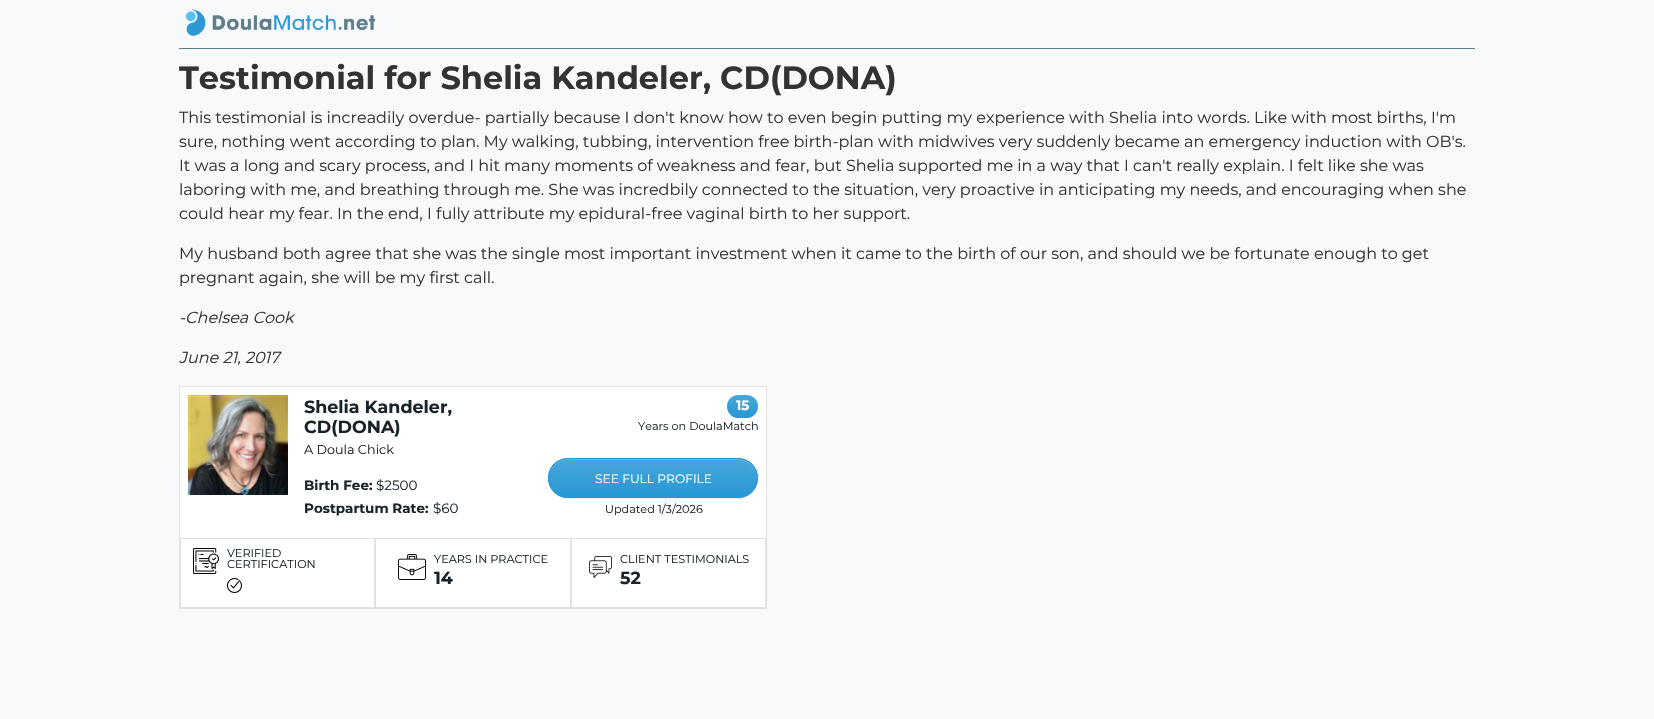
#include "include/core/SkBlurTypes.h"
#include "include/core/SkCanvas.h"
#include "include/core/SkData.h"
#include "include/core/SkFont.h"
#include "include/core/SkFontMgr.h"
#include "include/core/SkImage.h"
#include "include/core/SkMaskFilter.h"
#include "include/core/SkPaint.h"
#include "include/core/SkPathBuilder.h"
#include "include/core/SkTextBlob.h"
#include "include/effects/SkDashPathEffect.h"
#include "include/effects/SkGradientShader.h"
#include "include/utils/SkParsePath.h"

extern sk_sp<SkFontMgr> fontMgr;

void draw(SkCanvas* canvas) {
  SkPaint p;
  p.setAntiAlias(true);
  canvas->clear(SkColorSetRGB(248, 249, 250));
  canvas->drawImageRect(SkImages::DeferredFromEncodedData(SkData::MakeFromFileName("images/1.png")), SkRect::MakeLTRB(185, 9, 376, 36), SkSamplingOptions());
  p.setColor(SkColorSetRGB(93, 123, 138));
  canvas->drawRect(SkRect::MakeLTRB(179, 48, 1475, 49), p);
  p.setColor(SK_ColorWHITE);
  canvas->drawRect(SkRect::MakeLTRB(180, 387, 766, 607), p);
  p.setStyle(SkPaint::kStroke_Style);
  p.setStrokeWidth(1);
  p.setColor(SkColorSetRGB(225, 225, 225));
  canvas->drawRect(SkRect::MakeLTRB(179.5f, 386.5f, 766.5f, 608.5f), p);
  canvas->drawImageRect(SkImages::DeferredFromEncodedData(SkData::MakeFromFileName("images/2.png")), SkRect::MakeLTRB(188, 395, 288, 495), SkSamplingOptions());
  p.setStyle(SkPaint::kFill_Style);
  p.setColor(SkColorSetRGB(39, 152, 212));
  canvas->drawRoundRect(SkRect::MakeLTRB(727, 395, 758, 418), 11.5f, 11.5f, p);
  {
    const SkColor colors[] = {SkColorSetARGB(38, 255, 255, 255), SkColorSetARGB(0, 255, 255, 255)};
    const float stops[] = {0, 1};
    const SkPoint ends[] = {{743, 395}, {743, 418}};
    p.setShader(SkGradientShader::MakeLinear(ends, colors, stops, 2, SkTileMode::kClamp));
    p.setAlpha(255);
  }
  canvas->drawRoundRect(SkRect::MakeLTRB(727, 395, 758, 418), 11.5f, 11.5f, p);
  p.setShader(nullptr);
  p.setColor(SkColorSetARGB(18, 0, 0, 0));
  p.setMaskFilter(SkMaskFilter::MakeBlur(kNormal_SkBlurStyle, 0.5f));
  canvas->drawRoundRect(SkRect::MakeLTRB(548, 459, 758, 499), 20, 20, p);
  p.setMaskFilter(nullptr);
  p.setColor(SkColorSetRGB(39, 152, 212));
  canvas->drawRoundRect(SkRect::MakeLTRB(548, 458, 758, 498), 20, 20, p);
  canvas->save();
  canvas->clipPath(SkPathBuilder().moveTo(568, 458).lineTo(738, 458).cubicTo(749, 458, 758, 467, 758, 478).cubicTo(758, 489, 749, 498, 738, 498).lineTo(568, 498).cubicTo(557, 498, 548, 489, 548, 478).cubicTo(548, 467, 557, 458, 568, 458).close().detach(), true);
  {
    const SkColor colors[] = {SkColorSetARGB(38, 255, 255, 255), SkColorSetARGB(0, 255, 255, 255)};
    const float stops[] = {0, 1};
    const SkPoint ends[] = {{653, 459}, {653, 497}};
    p.setShader(SkGradientShader::MakeLinear(ends, colors, stops, 2, SkTileMode::kClamp));
    p.setAlpha(255);
  }
  canvas->drawRect(SkRect::MakeLTRB(548, 459, 758, 492), p);
  canvas->restore();
  p.setShader(nullptr);
  p.setColor(SkColorSetARGB(38, 255, 255, 255));
  canvas->drawPath(SkPathBuilder().moveTo(568, 460).lineTo(738, 460).cubicTo(748, 460, 757, 469, 757, 479).lineTo(757, 478).cubicTo(757, 468, 748, 459, 738, 459).lineTo(568, 459).cubicTo(558, 459, 549, 468, 549, 478).lineTo(549, 479).cubicTo(549, 469, 558, 460, 568, 460).close().detach(), p);
  p.setStyle(SkPaint::kStroke_Style);
  p.setColor(SkColorSetRGB(39, 152, 212));
  canvas->drawRoundRect(SkRect::MakeLTRB(548.5f, 458.5f, 757.5f, 497.5f), 19.5f, 19.5f, p);
  p.setColor(SkColorSetRGB(225, 225, 225));
  canvas->drawRect(SkRect::MakeLTRB(180.5f, 538.5f, 374.5f, 607.5f), p);
  canvas->drawImageRect(SkImages::DeferredFromEncodedData(SkData::MakeFromFileName("images/3.png")), SkRect::MakeLTRB(193, 548, 219, 574), SkSamplingOptions());
  canvas->drawImageRect(SkImages::DeferredFromEncodedData(SkData::MakeFromFileName("images/4.png")), SkRect::MakeLTRB(227, 578, 242, 593), SkSamplingOptions());
  canvas->drawRect(SkRect::MakeLTRB(375.5f, 538.5f, 570.5f, 607.5f), p);
  canvas->drawImageRect(SkImages::DeferredFromEncodedData(SkData::MakeFromFileName("images/5.png")), SkRect::MakeLTRB(398, 554, 426, 580), SkSamplingOptions());
  canvas->drawRect(SkRect::MakeLTRB(571.5f, 538.5f, 765.5f, 607.5f), p);
  canvas->drawImageRect(SkImages::DeferredFromEncodedData(SkData::MakeFromFileName("images/6.png")), SkRect::MakeLTRB(589, 556, 612, 578), SkSamplingOptions());
  SkFont font1(fontMgr->matchFamilyStyle("Montserrat", SkFontStyle(100, SkFontStyle::kNormal_Width, SkFontStyle::kUpright_Slant)), 32);
  font1.setSubpixel(true);
  p.setStyle(SkPaint::kFill_Style);
  p.setColor(SkColorSetRGB(51, 51, 51));
  canvas->drawString("Testimonial for Shelia Kandeler, CD(DONA)", 179, 89, font1, p);
  SkFont font2(fontMgr->matchFamilyStyle("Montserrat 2", SkFontStyle(100, SkFontStyle::kNormal_Width, SkFontStyle::kUpright_Slant)), 16);
  font2.setSubpixel(true);
  canvas->drawString("This testimonial is increadily overdue- partially because I don't know how to even begin putting my experience with Shelia into words. Like with most births, I'm", 179, 123, font2, p);
  canvas->drawString("sure, nothing went according to plan. My walking, tubbing, intervention free birth-plan with midwives very suddenly became an emergency induction with OB's.", 179, 147, font2, p);
  canvas->drawString("It was a long and scary process, and I hit many moments of weakness and fear, but Shelia supported me in a way that I can't really explain. I felt like she was", 179, 171, font2, p);
  canvas->drawString("laboring with me, and breathing through me. She was incredbily connected to the situation, very proactive in anticipating my needs, and encouraging when she", 179, 195, font2, p);
  canvas->drawString("could hear my fear. In the end, I fully attribute my epidural-free vaginal birth to her support.", 179, 219, font2, p);
  canvas->drawString("My husband both agree that she was the single most important investment when it came to the birth of our son, and should we be fortunate enough to get", 179, 259, font2, p);
  canvas->drawString("pregnant again, she will be my first call.", 179, 283, font2, p);
  SkFont font3(fontMgr->matchFamilyStyle("Montserrat", SkFontStyle(100, SkFontStyle::kNormal_Width, SkFontStyle::kItalic_Slant)), 16);
  font3.setSubpixel(true);
  canvas->drawString("-Chelsea Cook", 179, 323, font3, p);
  canvas->drawString("June 21, 2017", 179, 363, font3, p);
  SkFont font4(fontMgr->matchFamilyStyle("Montserrat", SkFontStyle(100, SkFontStyle::kNormal_Width, SkFontStyle::kUpright_Slant)), 17.5f);
  font4.setSubpixel(true);
  p.setColor(SkColorSetRGB(25, 36, 42));
  canvas->drawString("Shelia Kandeler,", 304, 413, font4, p);
  canvas->drawString("CD(DONA)", 304, 433, font4, p);
  SkFont font5(fontMgr->matchFamilyStyle("Montserrat 2", SkFontStyle(100, SkFontStyle::kNormal_Width, SkFontStyle::kUpright_Slant)), 12.75f);
  font5.setSubpixel(true);
  canvas->drawString("A Doula Chick", 304, 454, font5, p);
  SkFont font6(fontMgr->matchFamilyStyle("Montserrat", SkFontStyle(100, SkFontStyle::kNormal_Width, SkFontStyle::kUpright_Slant)), 13.5f);
  font6.setSubpixel(true);
  canvas->drawString("Birth Fee:", 304, 490, font6, p);
  SkFont font7(fontMgr->matchFamilyStyle("Montserrat 2", SkFontStyle(100, SkFontStyle::kNormal_Width, SkFontStyle::kUpright_Slant)), 13.5f);
  font7.setSubpixel(true);
  canvas->drawString("$2500", 376, 490, font7, p);
  canvas->drawString("Postpartum Rate:", 304, 513, font6, p);
  canvas->drawString("$60", 433, 513, font7, p);
  p.setColor(SK_ColorWHITE);
  canvas->drawString("15", 736, 410, font6, p);
  SkFont font8(fontMgr->matchFamilyStyle("Montserrat 2", SkFontStyle(100, SkFontStyle::kNormal_Width, SkFontStyle::kUpright_Slant)), 11.25f);
  font8.setSubpixel(true);
  p.setColor(SkColorSetRGB(25, 36, 42));
  canvas->drawString("Years on DoulaMatch", 638, 430, font8, p);
  SkFont font9(fontMgr->matchFamilyStyle("Montserrat 2", SkFontStyle(100, SkFontStyle::kNormal_Width, SkFontStyle::kUpright_Slant)), 12.25f);
  font9.setSubpixel(true);
  p.setColor(SK_ColorWHITE);
  canvas->drawString("SEE FULL PROFILE", 595, 483, font9, p);
  p.setColor(SkColorSetRGB(25, 36, 42));
  canvas->drawString("Updated 1/3/2026", 605, 513, font8, p);
  canvas->drawString("VERIFIED", 227, 557, font8, p);
  canvas->drawString("CERTIFICATION", 227, 568, font8, p);
  canvas->drawString("YEARS IN PRACTICE", 434, 563, font8, p);
  canvas->drawString("14", 434, 584, font4, p);
  canvas->drawString("CLIENT TESTIMONIALS", 620, 563, font8, p);
  canvas->drawString("52", 620, 584, font4, p);
}
